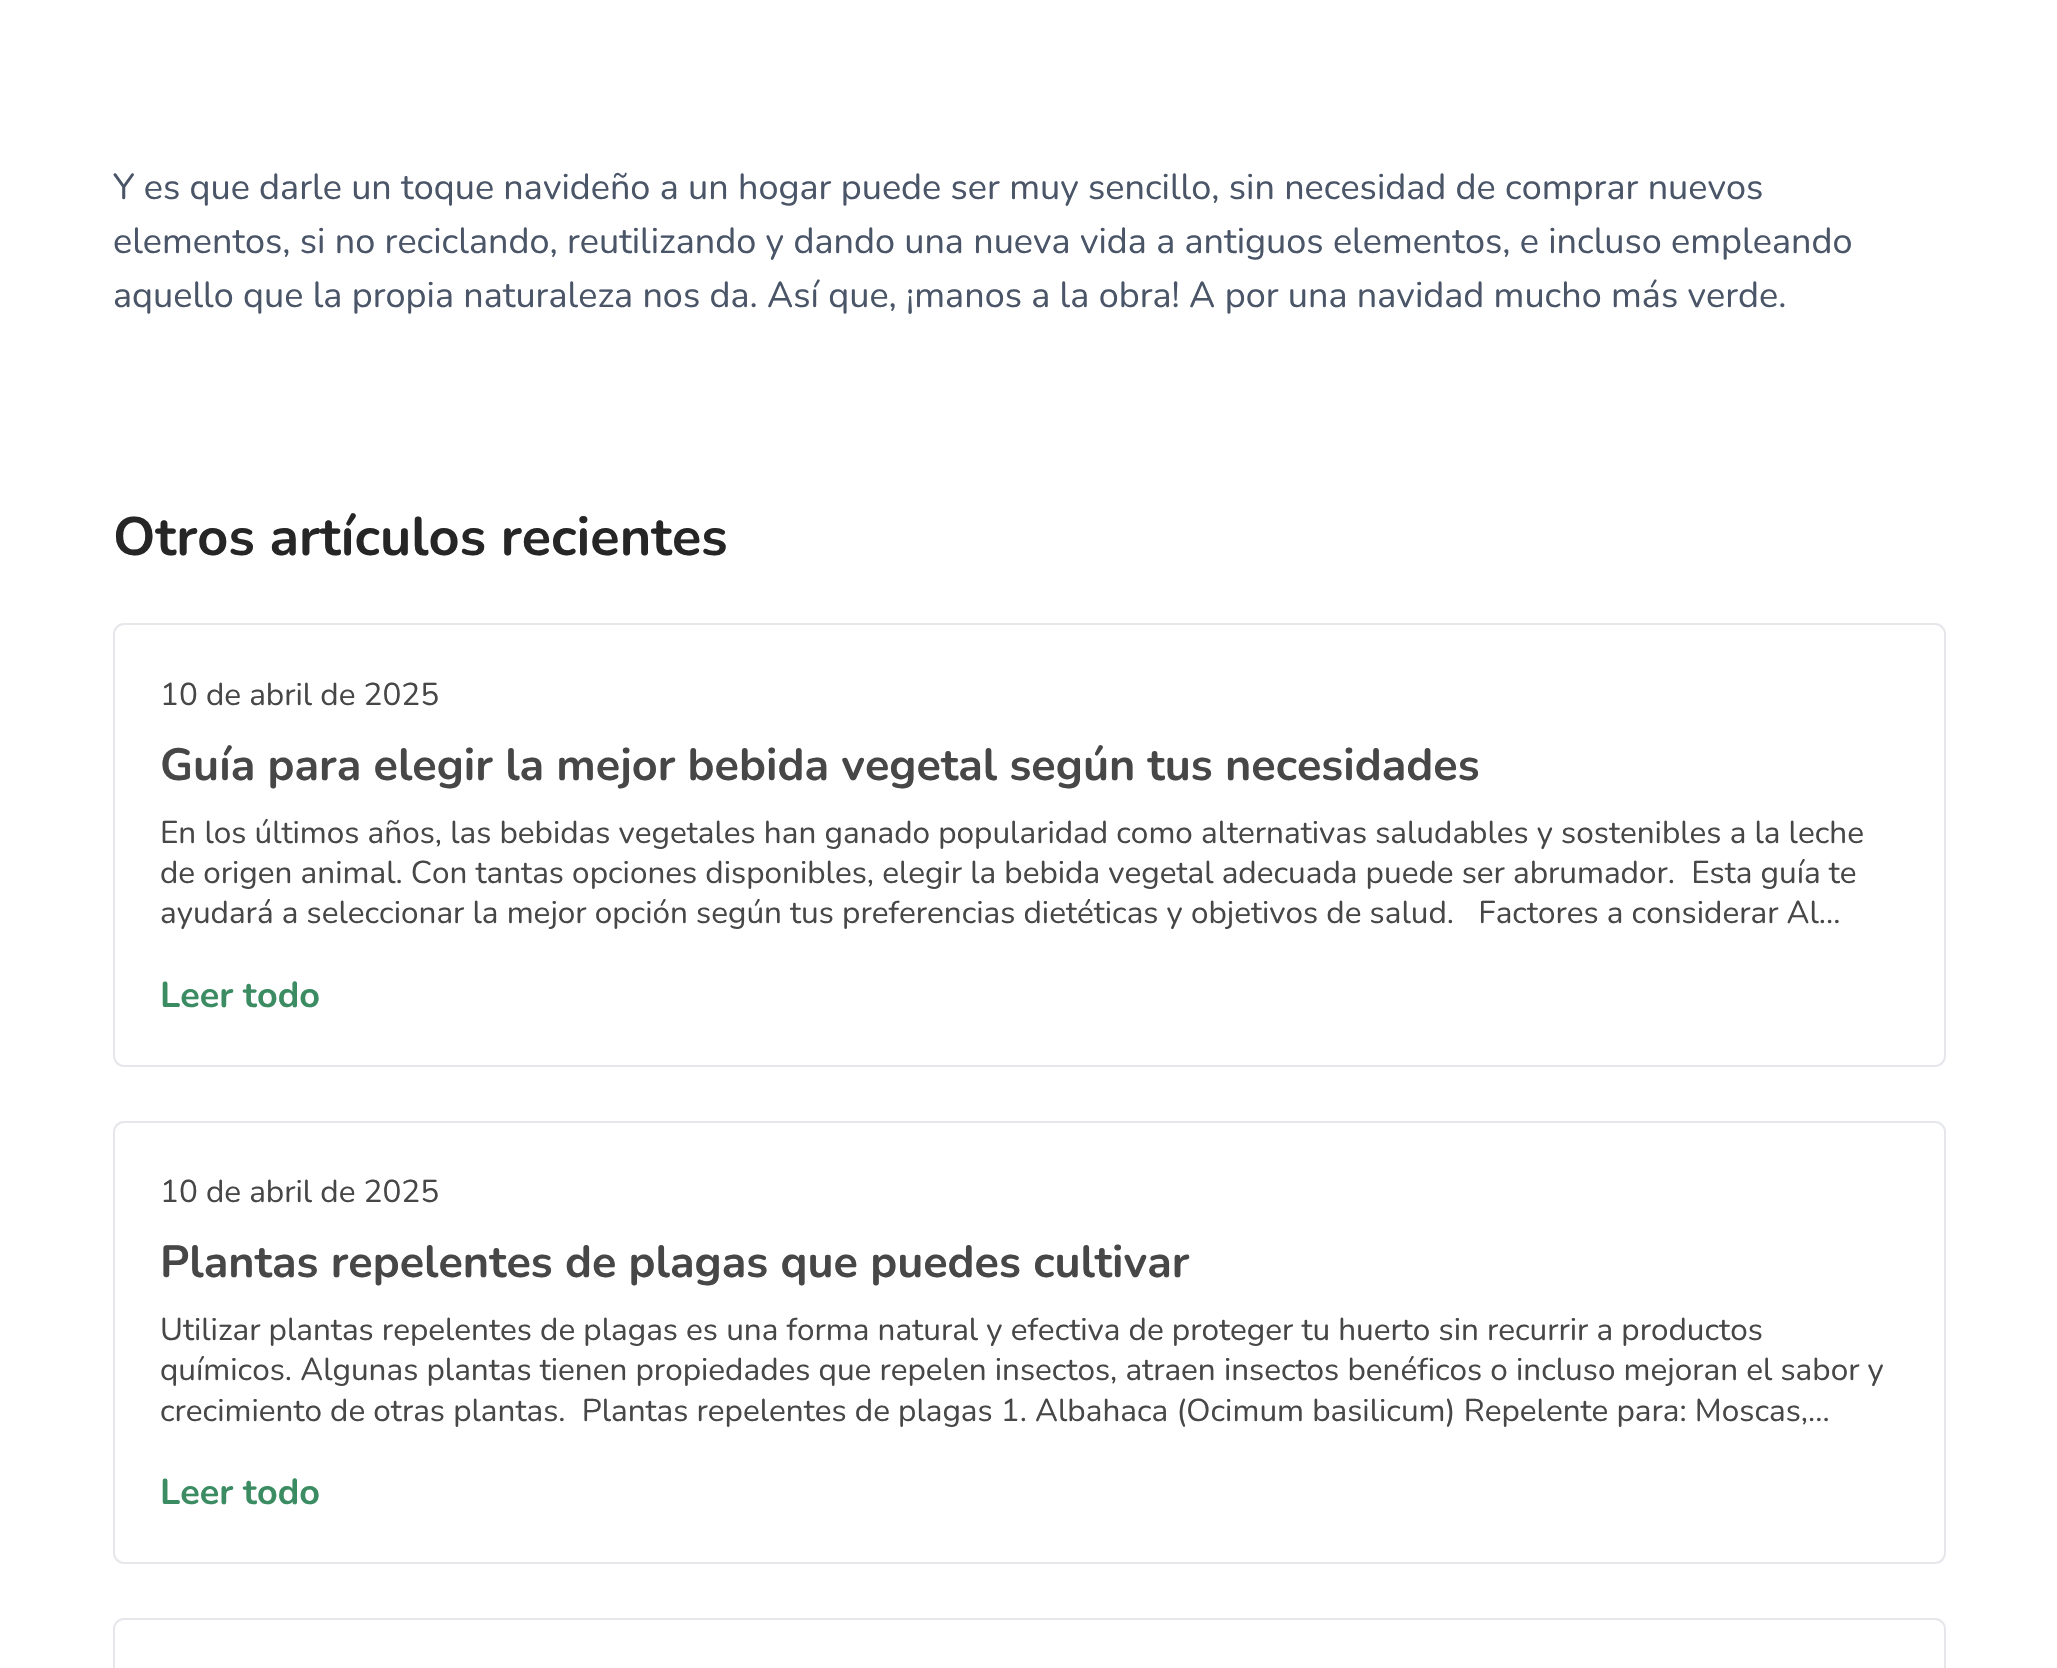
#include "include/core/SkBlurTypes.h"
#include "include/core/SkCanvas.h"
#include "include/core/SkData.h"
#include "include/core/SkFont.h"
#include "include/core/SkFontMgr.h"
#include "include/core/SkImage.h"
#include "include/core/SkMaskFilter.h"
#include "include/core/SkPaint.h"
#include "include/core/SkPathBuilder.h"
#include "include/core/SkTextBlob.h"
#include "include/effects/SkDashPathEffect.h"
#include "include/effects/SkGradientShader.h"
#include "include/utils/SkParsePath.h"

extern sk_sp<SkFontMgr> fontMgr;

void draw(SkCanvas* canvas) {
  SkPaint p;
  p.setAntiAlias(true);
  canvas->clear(SK_ColorWHITE);
  p.setStyle(SkPaint::kStroke_Style);
  p.setStrokeWidth(2);
  p.setColor(SkColorSetRGB(229, 231, 235));
  canvas->drawRoundRect(SkRect::MakeLTRB(114, 624, 1945, 1066), 10, 10, p);
  canvas->drawRoundRect(SkRect::MakeLTRB(114, 1122, 1945, 1563), 10, 10, p);
  canvas->drawRoundRect(SkRect::MakeLTRB(114, 1619, 1945, 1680), 10, 10, p);
  SkFont font1(fontMgr->matchFamilyStyle("Nunito", SkFontStyle::Normal()), 36);
  font1.setSubpixel(true);
  p.setStyle(SkPaint::kFill_Style);
  p.setColor(SkColorSetRGB(74, 85, 104));
  canvas->drawString("Y es que darle un toque navideño a un hogar puede ser muy sencillo, sin necesidad de comprar nuevos", 113, 199, font1, p);
  canvas->drawString("elementos, si no reciclando, reutilizando y dando una nueva vida a antiguos elementos, e incluso empleando", 113, 253, font1, p);
  canvas->drawString("aquello que la propia naturaleza nos da. Así que, ¡manos a la obra! A por una navidad mucho más verde.", 113, 307, font1, p);
  SkFont font2(fontMgr->matchFamilyStyle("Nunito", SkFontStyle::Bold()), 54);
  font2.setSubpixel(true);
  p.setColor(SkColorSetRGB(38, 38, 38));
  canvas->drawString("Otros artículos recientes", 113, 555, font2, p);
  SkFont font3(fontMgr->matchFamilyStyle("Nunito", SkFontStyle::Normal()), 31.5f);
  font3.setSubpixel(true);
  p.setColor(SkColorSetRGB(71, 71, 71));
  canvas->drawString("10 de abril de 2025", 160, 705, font3, p);
  SkFont font4(fontMgr->matchFamilyStyle("Nunito", SkFontStyle::Bold()), 45);
  font4.setSubpixel(true);
  canvas->drawString("Guía para elegir la mejor bebida vegetal según tus necesidades", 160, 780, font4, p);
  canvas->drawString("En los últimos años, las bebidas vegetales han ganado popularidad como alternativas saludables y sostenibles a la leche", 160, 843, font3, p);
  canvas->drawString("de origen animal. Con tantas opciones disponibles, elegir la bebida vegetal adecuada puede ser abrumador.  Esta guía te", 160, 883, font3, p);
  canvas->drawString("ayudará a seleccionar la mejor opción según tus preferencias dietéticas y objetivos de salud.   Factores a considerar Al...", 160, 923, font3, p);
  SkFont font5(fontMgr->matchFamilyStyle("Nunito", SkFontStyle::Bold()), 36);
  font5.setSubpixel(true);
  p.setColor(SkColorSetRGB(59, 140, 98));
  canvas->drawString("Leer todo", 160, 1007, font5, p);
  p.setColor(SkColorSetRGB(71, 71, 71));
  canvas->drawString("10 de abril de 2025", 160, 1202, font3, p);
  canvas->drawString("Plantas repelentes de plagas que puedes cultivar", 160, 1277, font4, p);
  canvas->drawString("Utilizar plantas repelentes de plagas es una forma natural y efectiva de proteger tu huerto sin recurrir a productos", 160, 1340, font3, p);
  canvas->drawString("químicos. Algunas plantas tienen propiedades que repelen insectos, atraen insectos benéficos o incluso mejoran el sabor y", 160, 1380, font3, p);
  canvas->drawString("crecimiento de otras plantas.  Plantas repelentes de plagas 1. Albahaca (Ocimum basilicum) Repelente para: Moscas,...", 160, 1421, font3, p);
  p.setColor(SkColorSetRGB(59, 140, 98));
  canvas->drawString("Leer todo", 160, 1504, font5, p);
}
